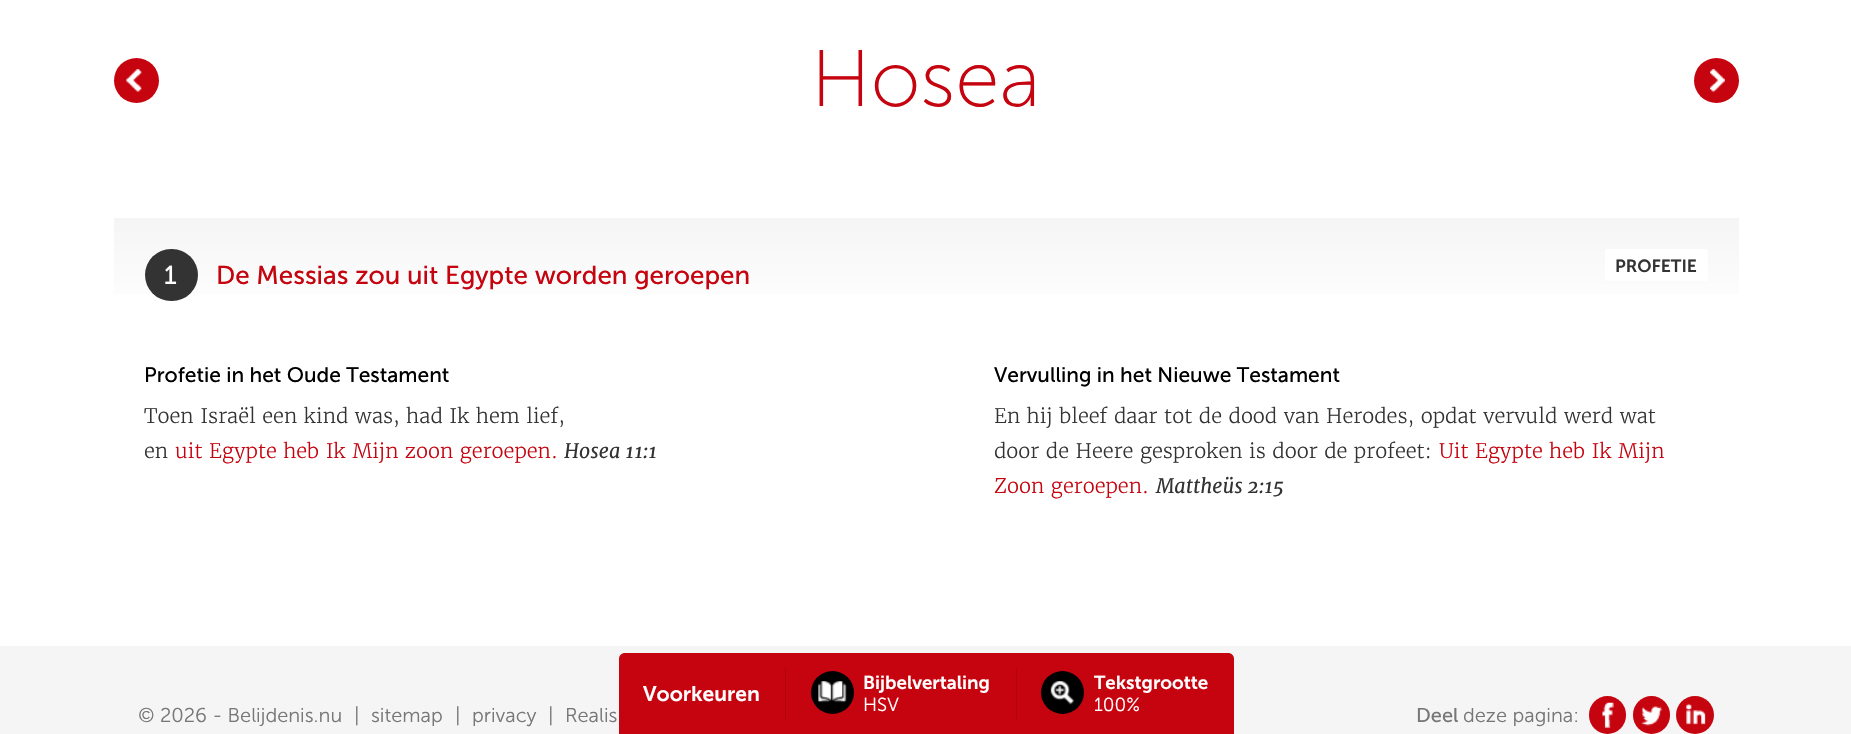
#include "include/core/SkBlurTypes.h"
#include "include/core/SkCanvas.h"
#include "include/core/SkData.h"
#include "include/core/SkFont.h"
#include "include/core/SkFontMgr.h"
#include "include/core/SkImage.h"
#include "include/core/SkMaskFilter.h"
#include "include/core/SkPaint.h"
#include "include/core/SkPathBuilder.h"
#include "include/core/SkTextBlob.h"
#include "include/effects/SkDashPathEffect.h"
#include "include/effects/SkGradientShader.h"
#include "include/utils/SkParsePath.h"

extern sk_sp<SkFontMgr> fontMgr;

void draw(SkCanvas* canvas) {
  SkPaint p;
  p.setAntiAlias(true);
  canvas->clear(SK_ColorWHITE);
  p.setColor(SkColorSetRGB(198, 4, 15));
  canvas->drawCircle(136.5f, 80.5f, 22.5f, p);
  canvas->drawImageRect(SkImages::DeferredFromEncodedData(SkData::MakeFromFileName("images/1.png")), SkRect::MakeLTRB(126, 69, 142, 92), SkSamplingOptions());
  canvas->drawCircle(1716.5f, 80.5f, 22.5f, p);
  canvas->drawImageRect(SkImages::DeferredFromEncodedData(SkData::MakeFromFileName("images/2.png")), SkRect::MakeLTRB(1710, 69, 1725, 92), SkSamplingOptions());
  {
    const SkColor colors[] = {SkColorSetRGB(245, 245, 245), SK_ColorWHITE};
    const float stops[] = {0, 1};
    const SkPoint ends[] = {{926, 217}, {926, 320}};
    p.setShader(SkGradientShader::MakeLinear(ends, colors, stops, 2, SkTileMode::kClamp));
    p.setAlpha(255);
  }
  canvas->drawRect(SkRect::MakeLTRB(114, 218, 1739, 294), p);
  p.setShader(nullptr);
  p.setColor(SkColorSetRGB(51, 51, 51));
  canvas->drawRoundRect(SkRect::MakeLTRB(145, 249, 198, 301), 26, 26, p);
  p.setColor(SK_ColorWHITE);
  canvas->drawRoundRect(SkRect::MakeLTRB(1605, 249, 1708, 281), 2.5f, 2.5f, p);
  p.setColor(SkColorSetRGB(245, 245, 245));
  canvas->drawRect(SkRect::MakeLTRB(0, 646, 1851, 734), p);
  p.setColor(SkColorSetRGB(198, 4, 15));
  canvas->drawRoundRect(SkRect::MakeLTRB(1589, 696, 1626, 734), 18.5f, 18.5f, p);
  canvas->drawImageRect(SkImages::DeferredFromEncodedData(SkData::MakeFromFileName("images/3.png")), SkRect::MakeLTRB(1602, 702, 1614, 728), SkSamplingOptions());
  canvas->drawRoundRect(SkRect::MakeLTRB(1633, 696, 1670, 734), 18.5f, 18.5f, p);
  canvas->drawImageRect(SkImages::DeferredFromEncodedData(SkData::MakeFromFileName("images/4.png")), SkRect::MakeLTRB(1641, 706, 1663, 726), SkSamplingOptions());
  canvas->drawCircle(1695, 715, 19, p);
  canvas->drawImageRect(SkImages::DeferredFromEncodedData(SkData::MakeFromFileName("images/5.png")), SkRect::MakeLTRB(1686, 703, 1706, 725), SkSamplingOptions());
  canvas->drawPath(SkPathBuilder().moveTo(625, 653).lineTo(1228, 653).cubicTo(1231.5f, 653, 1234, 655.5f, 1234, 659).lineTo(1234, 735).lineTo(619, 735).lineTo(619, 659).cubicTo(619, 655.5f, 621.5f, 653, 625, 653).close().detach(), p);
  p.setColor(SkColorSetRGB(174, 4, 13));
  canvas->drawRect(SkRect::MakeLTRB(785, 668, 786, 720), p);
  p.setColor(SK_ColorBLACK);
  canvas->drawCircle(832.5f, 692.5f, 21.5f, p);
  canvas->drawImageRect(SkImages::DeferredFromEncodedData(SkData::MakeFromFileName("images/6.png")), SkRect::MakeLTRB(818, 681, 847, 703), SkSamplingOptions());
  p.setColor(SkColorSetRGB(174, 4, 13));
  canvas->drawRect(SkRect::MakeLTRB(1016, 668, 1017, 720), p);
  p.setColor(SK_ColorBLACK);
  canvas->drawCircle(1062.5f, 692.5f, 21.5f, p);
  canvas->drawImageRect(SkImages::DeferredFromEncodedData(SkData::MakeFromFileName("images/7.png")), SkRect::MakeLTRB(1050, 681, 1075, 705), SkSamplingOptions());
  SkFont font1(fontMgr->matchFamilyStyle("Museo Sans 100", SkFontStyle(300, SkFontStyle::kNormal_Width, SkFontStyle::kUpright_Slant)), 80);
  font1.setSubpixel(true);
  p.setColor(SkColorSetRGB(198, 4, 15));
  canvas->drawString("Hosea", 811, 106, font1, p);
  SkFont font2(fontMgr->matchFamilyStyle("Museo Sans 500", SkFontStyle::Normal()), 26);
  font2.setSubpixel(true);
  p.setColor(SK_ColorWHITE);
  canvas->drawString("1", 164, 284, font2, p);
  p.setColor(SkColorSetRGB(198, 4, 15));
  canvas->drawString("De Messias zou uit Egypte worden geroepen", 216, 284, font2, p);
  SkFont font3(fontMgr->matchFamilyStyle("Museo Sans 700", SkFontStyle(600, SkFontStyle::kNormal_Width, SkFontStyle::kUpright_Slant)), 17.5f);
  font3.setSubpixel(true);
  p.setColor(SkColorSetRGB(51, 51, 51));
  canvas->drawString("PROFETIE", 1615, 272, font3, p);
  SkFont font4(fontMgr->matchFamilyStyle("Museo Sans 500", SkFontStyle::Normal()), 21);
  font4.setSubpixel(true);
  p.setColor(SK_ColorBLACK);
  canvas->drawString("Profetie in het Oude Testament", 144, 382, font4, p);
  SkFont font5(fontMgr->matchFamilyStyle("Merriweather", SkFontStyle(300, SkFontStyle::kNormal_Width, SkFontStyle::kUpright_Slant)), 20);
  font5.setSubpixel(true);
  p.setColor(SkColorSetRGB(51, 51, 51));
  canvas->drawString("Toen Israël een kind was, had Ik hem lief,", 144, 423, font5, p);
  canvas->drawString("en", 144, 458, font5, p);
  p.setColor(SkColorSetRGB(198, 4, 15));
  canvas->drawString("uit Egypte heb Ik Mijn zoon geroepen.", 175, 458, font5, p);
  SkFont font6(fontMgr->matchFamilyStyle("Merriweather", SkFontStyle::Italic()), 20);
  font6.setSubpixel(true);
  p.setColor(SkColorSetRGB(51, 51, 51));
  canvas->drawString("Hosea 11:1", 564, 458, font6, p);
  p.setColor(SK_ColorBLACK);
  canvas->drawString("Vervulling in het Nieuwe Testament", 994, 382, font4, p);
  p.setColor(SkColorSetRGB(51, 51, 51));
  canvas->drawString("En hij bleef daar tot de dood van Herodes, opdat vervuld werd wat", 994, 423, font5, p);
  canvas->drawString("door de Heere gesproken is door de profeet:", 994, 458, font5, p);
  p.setColor(SkColorSetRGB(198, 4, 15));
  canvas->drawString("Uit Egypte heb Ik Mijn", 1439, 458, font5, p);
  canvas->drawString("Zoon geroepen.", 994, 493, font5, p);
  p.setColor(SkColorSetRGB(51, 51, 51));
  canvas->drawString("Mattheüs 2:15", 1156, 493, font6, p);
  SkFont font7(fontMgr->matchFamilyStyle("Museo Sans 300", SkFontStyle(300, SkFontStyle::kNormal_Width, SkFontStyle::kUpright_Slant)), 20);
  font7.setSubpixel(true);
  p.setColor(SkColorSetRGB(119, 119, 119));
  canvas->drawString("© 2026 - Belijdenis.nu", 138, 722, font7, p);
  canvas->drawString("|", 354, 722, font7, p);
  canvas->drawString("sitemap", 371, 722, font7, p);
  canvas->drawString("|", 455, 722, font7, p);
  canvas->drawString("privacy", 472, 722, font7, p);
  canvas->drawString("|", 548, 722, font7, p);
  canvas->drawString("Realis", 565, 722, font7, p);
  SkFont font8(fontMgr->matchFamilyStyle("Museo Sans 500", SkFontStyle::Normal()), 20);
  font8.setSubpixel(true);
  canvas->drawString("Deel", 1416, 722, font8, p);
  canvas->drawString("deze pagina:", 1463, 722, font7, p);
  SkFont font9(fontMgr->matchFamilyStyle("Museo Sans 700", SkFontStyle(600, SkFontStyle::kNormal_Width, SkFontStyle::kUpright_Slant)), 21);
  font9.setSubpixel(true);
  p.setColor(SK_ColorWHITE);
  canvas->drawString("Voorkeuren", 643, 701, font9, p);
  SkFont font10(fontMgr->matchFamilyStyle("Museo Sans 700", SkFontStyle(600, SkFontStyle::kNormal_Width, SkFontStyle::kUpright_Slant)), 18.75f);
  font10.setSubpixel(true);
  canvas->drawString("Bijbelvertaling", 863, 689, font10, p);
  SkFont font11(fontMgr->matchFamilyStyle("Museo Sans 300", SkFontStyle(300, SkFontStyle::kNormal_Width, SkFontStyle::kUpright_Slant)), 18.75f);
  font11.setSubpixel(true);
  canvas->drawString("HSV", 863, 711, font11, p);
  canvas->drawString("Tekstgrootte", 1094, 689, font10, p);
  canvas->drawString("100%", 1094, 711, font11, p);
}
